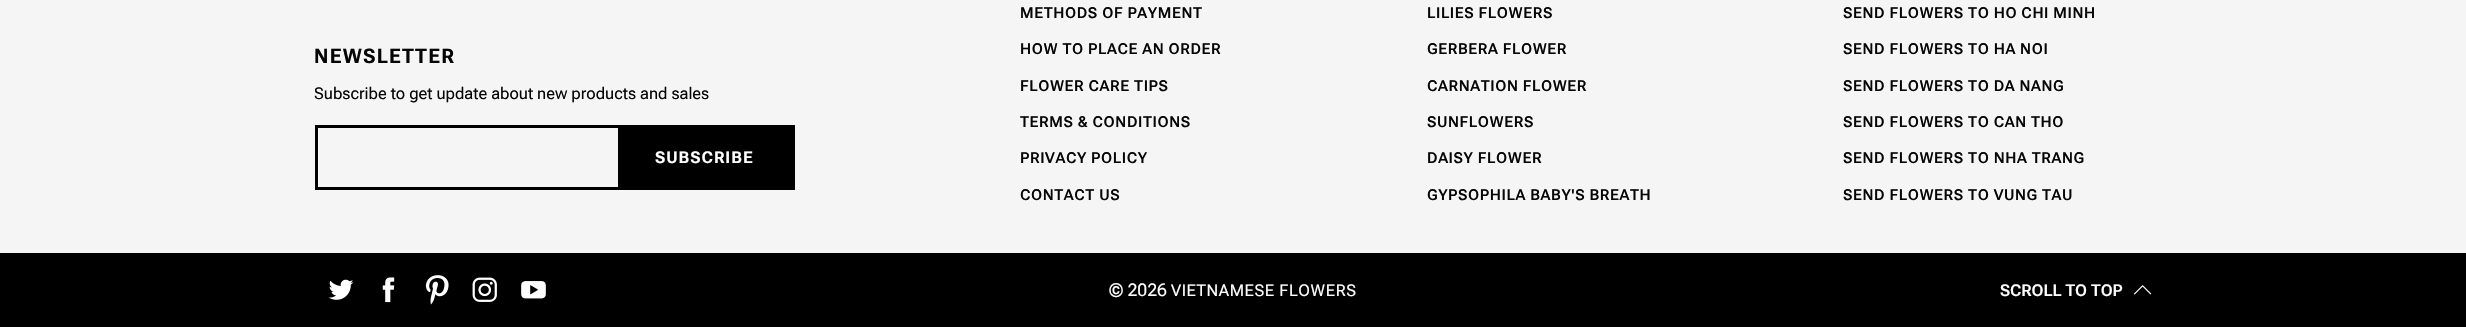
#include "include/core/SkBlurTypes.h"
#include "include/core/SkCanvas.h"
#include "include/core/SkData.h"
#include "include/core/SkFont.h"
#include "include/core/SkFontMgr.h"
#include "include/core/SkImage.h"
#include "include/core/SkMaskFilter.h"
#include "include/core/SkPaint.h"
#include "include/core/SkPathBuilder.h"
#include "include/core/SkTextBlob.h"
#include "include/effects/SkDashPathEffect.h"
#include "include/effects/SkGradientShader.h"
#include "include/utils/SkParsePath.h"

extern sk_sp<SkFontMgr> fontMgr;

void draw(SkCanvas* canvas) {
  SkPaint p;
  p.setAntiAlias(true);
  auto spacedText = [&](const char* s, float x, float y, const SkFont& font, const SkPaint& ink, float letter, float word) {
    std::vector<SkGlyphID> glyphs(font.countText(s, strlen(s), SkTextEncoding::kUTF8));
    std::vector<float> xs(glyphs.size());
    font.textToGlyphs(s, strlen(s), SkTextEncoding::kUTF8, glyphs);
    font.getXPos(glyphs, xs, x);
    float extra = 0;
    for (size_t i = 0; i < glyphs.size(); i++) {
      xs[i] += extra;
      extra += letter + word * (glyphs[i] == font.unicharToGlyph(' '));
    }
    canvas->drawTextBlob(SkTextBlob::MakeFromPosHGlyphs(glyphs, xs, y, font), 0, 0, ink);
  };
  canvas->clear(SkColorSetRGB(245, 245, 245));
  p.setStyle(SkPaint::kStroke_Style);
  p.setStrokeWidth(3);
  p.setColor(SK_ColorBLACK);
  canvas->drawRect(SkRect::MakeLTRB(316.5f, 126.5f, 793.5f, 188.5f), p);
  p.setStyle(SkPaint::kFill_Style);
  canvas->drawRect(SkRect::MakeLTRB(618, 128, 792, 187), p);
  canvas->drawRect(SkRect::MakeLTRB(0, 253, 2466, 327), p);
  canvas->drawImageRect(SkImages::DeferredFromEncodedData(SkData::MakeFromFileName("images/1.png")), SkRect::MakeLTRB(328, 279, 354, 300), SkSamplingOptions());
  canvas->drawImageRect(SkImages::DeferredFromEncodedData(SkData::MakeFromFileName("images/2.png")), SkRect::MakeLTRB(382, 277, 395, 303), SkSamplingOptions());
  canvas->drawImageRect(SkImages::DeferredFromEncodedData(SkData::MakeFromFileName("images/3.png")), SkRect::MakeLTRB(425, 275, 449, 305), SkSamplingOptions());
  canvas->drawImageRect(SkImages::DeferredFromEncodedData(SkData::MakeFromFileName("images/4.png")), SkRect::MakeLTRB(472, 277, 497, 302), SkSamplingOptions());
  canvas->drawImageRect(SkImages::DeferredFromEncodedData(SkData::MakeFromFileName("images/5.png")), SkRect::MakeLTRB(521, 281, 546, 299), SkSamplingOptions());
  canvas->drawImageRect(SkImages::DeferredFromEncodedData(SkData::MakeFromFileName("images/6.png")), SkRect::MakeLTRB(2133, 285, 2152, 295), SkSamplingOptions());
  SkFont font1(fontMgr->matchFamilyStyle("Roboto Flex", SkFontStyle::Bold()), 20);
  font1.setSubpixel(true);
  p.setColor(SkColorSetRGB(6, 6, 6));
  spacedText("NEWSLETTER", 314, 63, font1, p, 1.25f, 0);
  SkFont font2(fontMgr->matchFamilyStyle("Roboto Flex", SkFontStyle::Normal()), 16.25f);
  font2.setSubpixel(true);
  canvas->drawString("Subscribe to get update about new products and sales", 314, 99, font2, p);
  SkFont font3(fontMgr->matchFamilyStyle("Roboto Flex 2", SkFontStyle::Bold()), 16.25f);
  font3.setSubpixel(true);
  p.setColor(SK_ColorWHITE);
  spacedText("SUBSCRIBE", 655, 163, font3, p, 1, 0);
  SkFont font4(fontMgr->matchFamilyStyle("Roboto Flex", SkFontStyle(600, SkFontStyle::kNormal_Width, SkFontStyle::kUpright_Slant)), 15);
  font4.setSubpixel(true);
  p.setColor(SkColorSetRGB(6, 6, 6));
  spacedText("METHODS OF PAYMENT", 1020, 18, font4, p, 0.6f, 0);
  spacedText("HOW TO PLACE AN ORDER", 1020, 54, font4, p, 0.6f, 0);
  spacedText("FLOWER CARE TIPS", 1020, 91, font4, p, 0.6f, 0);
  spacedText("TERMS & CONDITIONS", 1020, 127, font4, p, 0.6f, 0);
  spacedText("PRIVACY POLICY", 1020, 163, font4, p, 0.6f, 0);
  spacedText("CONTACT US", 1020, 200, font4, p, 0.6f, 0);
  spacedText("LILIES FLOWERS", 1427, 18, font4, p, 0.6f, 0);
  spacedText("GERBERA FLOWER", 1427, 54, font4, p, 0.6f, 0);
  spacedText("CARNATION FLOWER", 1427, 91, font4, p, 0.6f, 0);
  spacedText("SUNFLOWERS", 1427, 127, font4, p, 0.6f, 0);
  spacedText("DAISY FLOWER", 1427, 163, font4, p, 0.6f, 0);
  spacedText("GYPSOPHILA BABY'S BREATH", 1427, 200, font4, p, 0.6f, 0);
  spacedText("SEND FLOWERS TO HO CHI MINH", 1843, 18, font4, p, 0.6f, 0);
  spacedText("SEND FLOWERS TO HA NOI", 1843, 54, font4, p, 0.6f, 0);
  spacedText("SEND FLOWERS TO DA NANG", 1843, 91, font4, p, 0.6f, 0);
  spacedText("SEND FLOWERS TO CAN THO", 1843, 127, font4, p, 0.6f, 0);
  spacedText("SEND FLOWERS TO NHA TRANG", 1843, 163, font4, p, 0.6f, 0);
  spacedText("SEND FLOWERS TO VUNG TAU", 1843, 200, font4, p, 0.6f, 0);
  SkFont font5(fontMgr->matchFamilyStyle("Roboto Flex 2", SkFontStyle::Normal()), 17.5f);
  font5.setSubpixel(true);
  p.setColor(SK_ColorWHITE);
  canvas->drawString("© 2026", 1109, 296, font5, p);
  spacedText("VIETNAMESE FLOWERS", 1171, 296, font2, p, 0.6f, 0);
  SkFont font6(fontMgr->matchFamilyStyle("Roboto Flex 2", SkFontStyle(600, SkFontStyle::kNormal_Width, SkFontStyle::kUpright_Slant)), 16.25f);
  font6.setSubpixel(true);
  canvas->drawString("SCROLL TO TOP", 2000, 296, font6, p);
}
